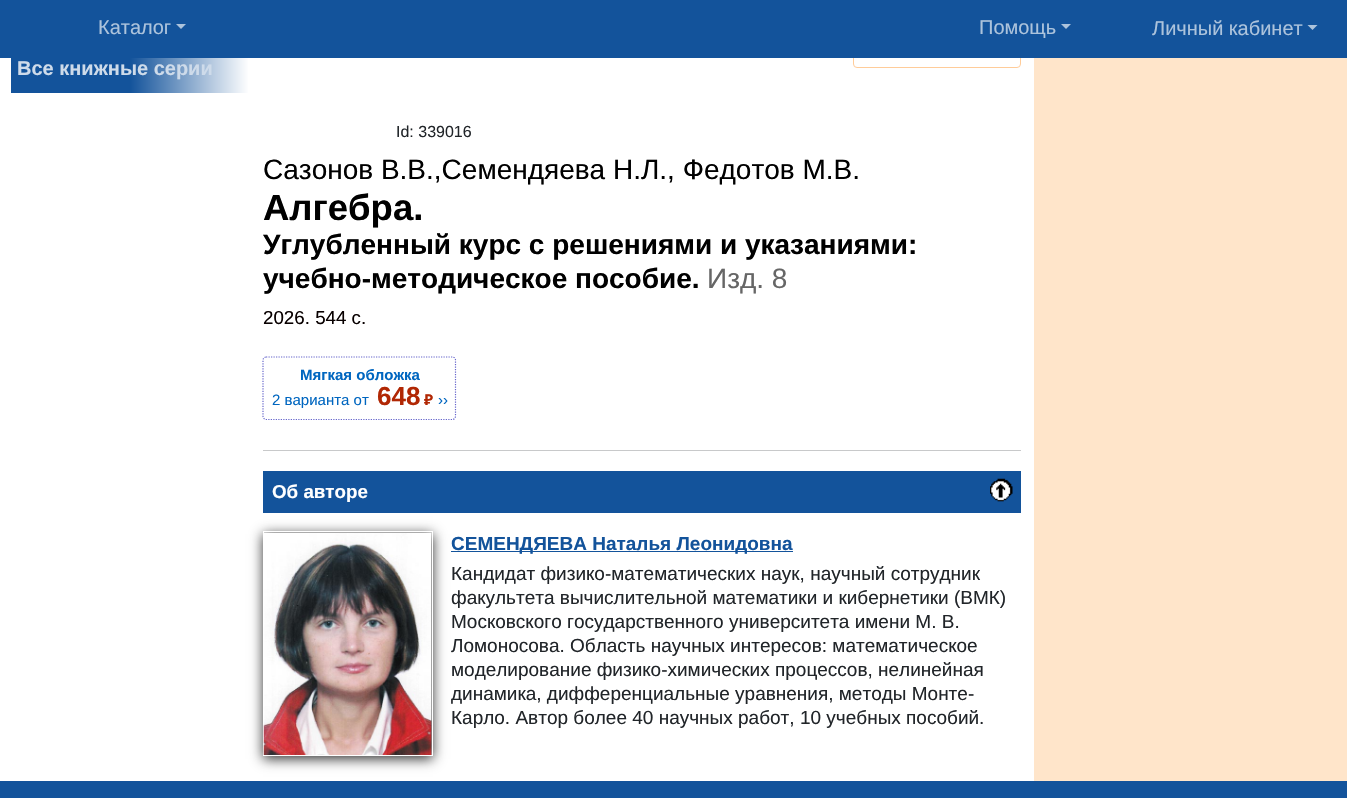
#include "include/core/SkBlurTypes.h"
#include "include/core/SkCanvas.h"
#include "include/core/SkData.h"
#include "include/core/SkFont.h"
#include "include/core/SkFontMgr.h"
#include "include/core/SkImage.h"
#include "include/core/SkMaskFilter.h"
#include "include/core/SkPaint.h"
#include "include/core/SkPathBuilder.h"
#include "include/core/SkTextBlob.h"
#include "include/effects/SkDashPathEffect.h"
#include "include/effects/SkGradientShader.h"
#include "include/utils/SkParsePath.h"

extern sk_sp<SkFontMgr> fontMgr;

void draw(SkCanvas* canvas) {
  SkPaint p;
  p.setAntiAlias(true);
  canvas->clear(SK_ColorWHITE);
  p.setStyle(SkPaint::kStroke_Style);
  p.setStrokeWidth(1);
  p.setColor(SkColorSetRGB(255, 204, 153));
  canvas->drawRoundRect(SkRect::MakeLTRB(853.5f, -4.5f, 1020.5f, 67.5f), 3.5f, 3.5f, p);
  p.setStyle(SkPaint::kFill_Style);
  p.setColor(SkColorSetRGB(19, 83, 155));
  canvas->drawRect(SkRect::MakeLTRB(0, 0, 1347, 58), p);
  p.setColor(SkColorSetRGB(172, 195, 220));
  canvas->drawPath(SkPathBuilder().moveTo(176, 24).lineTo(186, 24).lineTo(181, 29).close().detach(), p);
  canvas->drawPath(SkPathBuilder().moveTo(1061, 24).lineTo(1071, 24).lineTo(1066, 29).close().detach(), p);
  canvas->drawPath(SkPathBuilder().moveTo(1307.5f, 25).lineTo(1317.5f, 25).lineTo(1312.5f, 30).close().detach(), p);
  {
    const SkColor colors[] = {SkColorSetRGB(19, 83, 155), SkColorSetRGB(19, 83, 155), SK_ColorWHITE};
    const float stops[] = {0, 0.5f, 1};
    const SkPoint ends[] = {{11, 69}, {249, 69}};
    p.setShader(SkGradientShader::MakeLinear(ends, colors, stops, 3, SkTileMode::kClamp));
    p.setAlpha(255);
  }
  canvas->drawRect(SkRect::MakeLTRB(11, 58, 248, 93), p);
  p.setShader(nullptr);
  p.setColor(SkColorSetRGB(255, 229, 202));
  canvas->drawRect(SkRect::MakeLTRB(1034, 58, 1347, 781), p);
  p.setStyle(SkPaint::kStroke_Style);
  p.setStrokeWidth(1.2f);
  p.setColor(SkColorSetRGB(102, 102, 204));
  p.setPathEffect(SkDashPathEffect::Make({{1.25f, 1.25f}}, 0));
  canvas->drawPath(SkPathBuilder().moveTo(266, 357).lineTo(452.5f, 357).cubicTo(454, 357, 455.5f, 358.5f, 455.5f, 360).lineTo(455.5f, 416).cubicTo(455.5f, 418, 454, 419.5f, 452.5f, 419.5f).lineTo(266, 419.5f).cubicTo(264.5f, 419.5f, 263, 418, 263, 416).lineTo(263, 360).cubicTo(263, 358.5f, 264.5f, 357, 266, 357).close().detach(), p);
  p.setPathEffect(nullptr);
  p.setStyle(SkPaint::kFill_Style);
  p.setColor(SkColorSetRGB(200, 201, 202));
  canvas->drawRect(SkRect::MakeLTRB(263, 450, 1021, 451), p);
  p.setColor(SkColorSetRGB(19, 83, 155));
  canvas->drawRect(SkRect::MakeLTRB(263, 471, 1021, 513), p);
  canvas->drawImageRect(SkImages::DeferredFromEncodedData(SkData::MakeFromFileName("images/1.png")), SkRect::MakeLTRB(990, 478, 1013, 502), SkSamplingOptions());
  p.setColor(SkColorSetARGB(204, 0, 0, 0));
  p.setMaskFilter(SkMaskFilter::MakeBlur(kNormal_SkBlurStyle, 6));
  canvas->drawRect(SkRect::MakeLTRB(263, 534, 433, 759), p);
  p.setMaskFilter(nullptr);
  p.setStyle(SkPaint::kStroke_Style);
  p.setStrokeWidth(1);
  p.setColor(SK_ColorWHITE);
  canvas->drawRect(SkRect::MakeLTRB(263.5f, 531.5f, 432.5f, 755.5f), p);
  canvas->drawImageRect(SkImages::DeferredFromEncodedData(SkData::MakeFromFileName("images/2.png")), SkRect::MakeLTRB(263, 533, 432, 755), SkSamplingOptions());
  p.setStyle(SkPaint::kFill_Style);
  p.setColor(SkColorSetRGB(19, 83, 155));
  canvas->drawRect(SkRect::MakeLTRB(451, 551, 793, 552), p);
  canvas->drawRect(SkRect::MakeLTRB(0, 781, 1347, 798), p);
  SkFont font1(fontMgr->matchFamilyStyle("Liberation Sans", SkFontStyle::Normal()), 20);
  font1.setSubpixel(true);
  p.setColor(SkColorSetRGB(172, 195, 220));
  canvas->drawString("Каталог", 98, 34, font1, p);
  canvas->drawString("Помощь", 979, 34, font1, p);
  canvas->drawString("Личный кабинет", 1152, 35, font1, p);
  SkFont font2(fontMgr->matchFamilyStyle("Liberation Sans", SkFontStyle::Bold()), 20);
  font2.setSubpixel(true);
  p.setColor(SkColorSetRGB(206, 219, 234));
  canvas->drawString("Все книжные серии", 17, 75, font2, p);
  SkFont font3(fontMgr->matchFamilyStyle("Liberation Sans", SkFontStyle::Normal()), 16);
  font3.setSubpixel(true);
  p.setColor(SkColorSetRGB(33, 37, 41));
  canvas->drawString("Id: 339016", 396, 137, font3, p);
  SkFont font4(fontMgr->matchFamilyStyle("Liberation Sans", SkFontStyle::Normal()), 28);
  font4.setSubpixel(true);
  p.setColor(SK_ColorBLACK);
  canvas->drawString("Сазонов В.В.,Семендяева Н.Л., Федотов М.В.", 263, 179, font4, p);
  SkFont font5(fontMgr->matchFamilyStyle("Liberation Sans", SkFontStyle::Bold()), 36.5f);
  font5.setSubpixel(true);
  canvas->drawString("Алгебра.", 263, 220, font5, p);
  SkFont font6(fontMgr->matchFamilyStyle("Liberation Sans", SkFontStyle::Bold()), 28);
  font6.setSubpixel(true);
  canvas->drawString("Углубленный курс с решениями и указаниями:", 263, 254, font6, p);
  canvas->drawString("учебно-методическое пособие.", 263, 288, font6, p);
  p.setColor(SkColorSetRGB(102, 102, 102));
  canvas->drawString("Изд. 8", 707, 288, font4, p);
  SkFont font7(fontMgr->matchFamilyStyle("Liberation Sans", SkFontStyle::Normal()), 18.75f);
  font7.setSubpixel(true);
  p.setColor(SkColorSetRGB(8, 0, 0));
  canvas->drawString("2026. 544 с.", 263, 324, font7, p);
  SkFont font8(fontMgr->matchFamilyStyle("Liberation Sans", SkFontStyle::Bold()), 15);
  font8.setSubpixel(true);
  p.setColor(SkColorSetRGB(0, 102, 192));
  canvas->drawString("Мягкая обложка", 300, 380, font8, p);
  SkFont font9(fontMgr->matchFamilyStyle("Liberation Sans", SkFontStyle::Normal()), 15);
  font9.setSubpixel(true);
  canvas->drawString("2 варианта от", 272, 405, font9, p);
  SkFont font10(fontMgr->matchFamilyStyle("Liberation Sans", SkFontStyle::Bold()), 26);
  font10.setSubpixel(true);
  p.setColor(SkColorSetRGB(177, 39, 4));
  canvas->drawString("648", 377, 405, font10, p);
  SkFont font11(fontMgr->matchFamilyStyle("Noto Sans", SkFontStyle::Bold()), 15);
  font11.setSubpixel(true);
  canvas->drawString("₽", 424, 405, font11, p);
  p.setColor(SkColorSetRGB(0, 102, 192));
  canvas->drawString("››", 438, 405, font9, p);
  SkFont font12(fontMgr->matchFamilyStyle("Liberation Sans", SkFontStyle::Bold()), 18.75f);
  font12.setSubpixel(true);
  p.setColor(SK_ColorWHITE);
  canvas->drawString("Об авторе", 272, 498, font12, p);
  SkFont font13(fontMgr->matchFamilyStyle("Liberation Sans", SkFontStyle::Bold()), 19);
  font13.setSubpixel(true);
  p.setColor(SkColorSetRGB(19, 83, 155));
  canvas->drawString("СЕМЕНДЯЕВА Наталья Леонидовна", 451, 550, font13, p);
  SkFont font14(fontMgr->matchFamilyStyle("Liberation Sans", SkFontStyle::Normal()), 19);
  font14.setSubpixel(true);
  p.setColor(SkColorSetRGB(33, 37, 41));
  canvas->drawString("Кандидат физико-математических наук, научный сотрудник", 451, 580, font14, p);
  canvas->drawString("факультета вычислительной математики и кибернетики (ВМК)", 451, 604, font14, p);
  canvas->drawString("Московского государственного университета имени М. В.", 451, 628, font14, p);
  canvas->drawString("Ломоносова. Область научных интересов: математическое", 451, 652, font14, p);
  canvas->drawString("моделирование физико-химических процессов, нелинейная", 451, 676, font14, p);
  canvas->drawString("динамика, дифференциальные уравнения, методы Монте-", 451, 700, font14, p);
  canvas->drawString("Карло. Автор более 40 научных работ, 10 учебных пособий.", 451, 724, font14, p);
}
